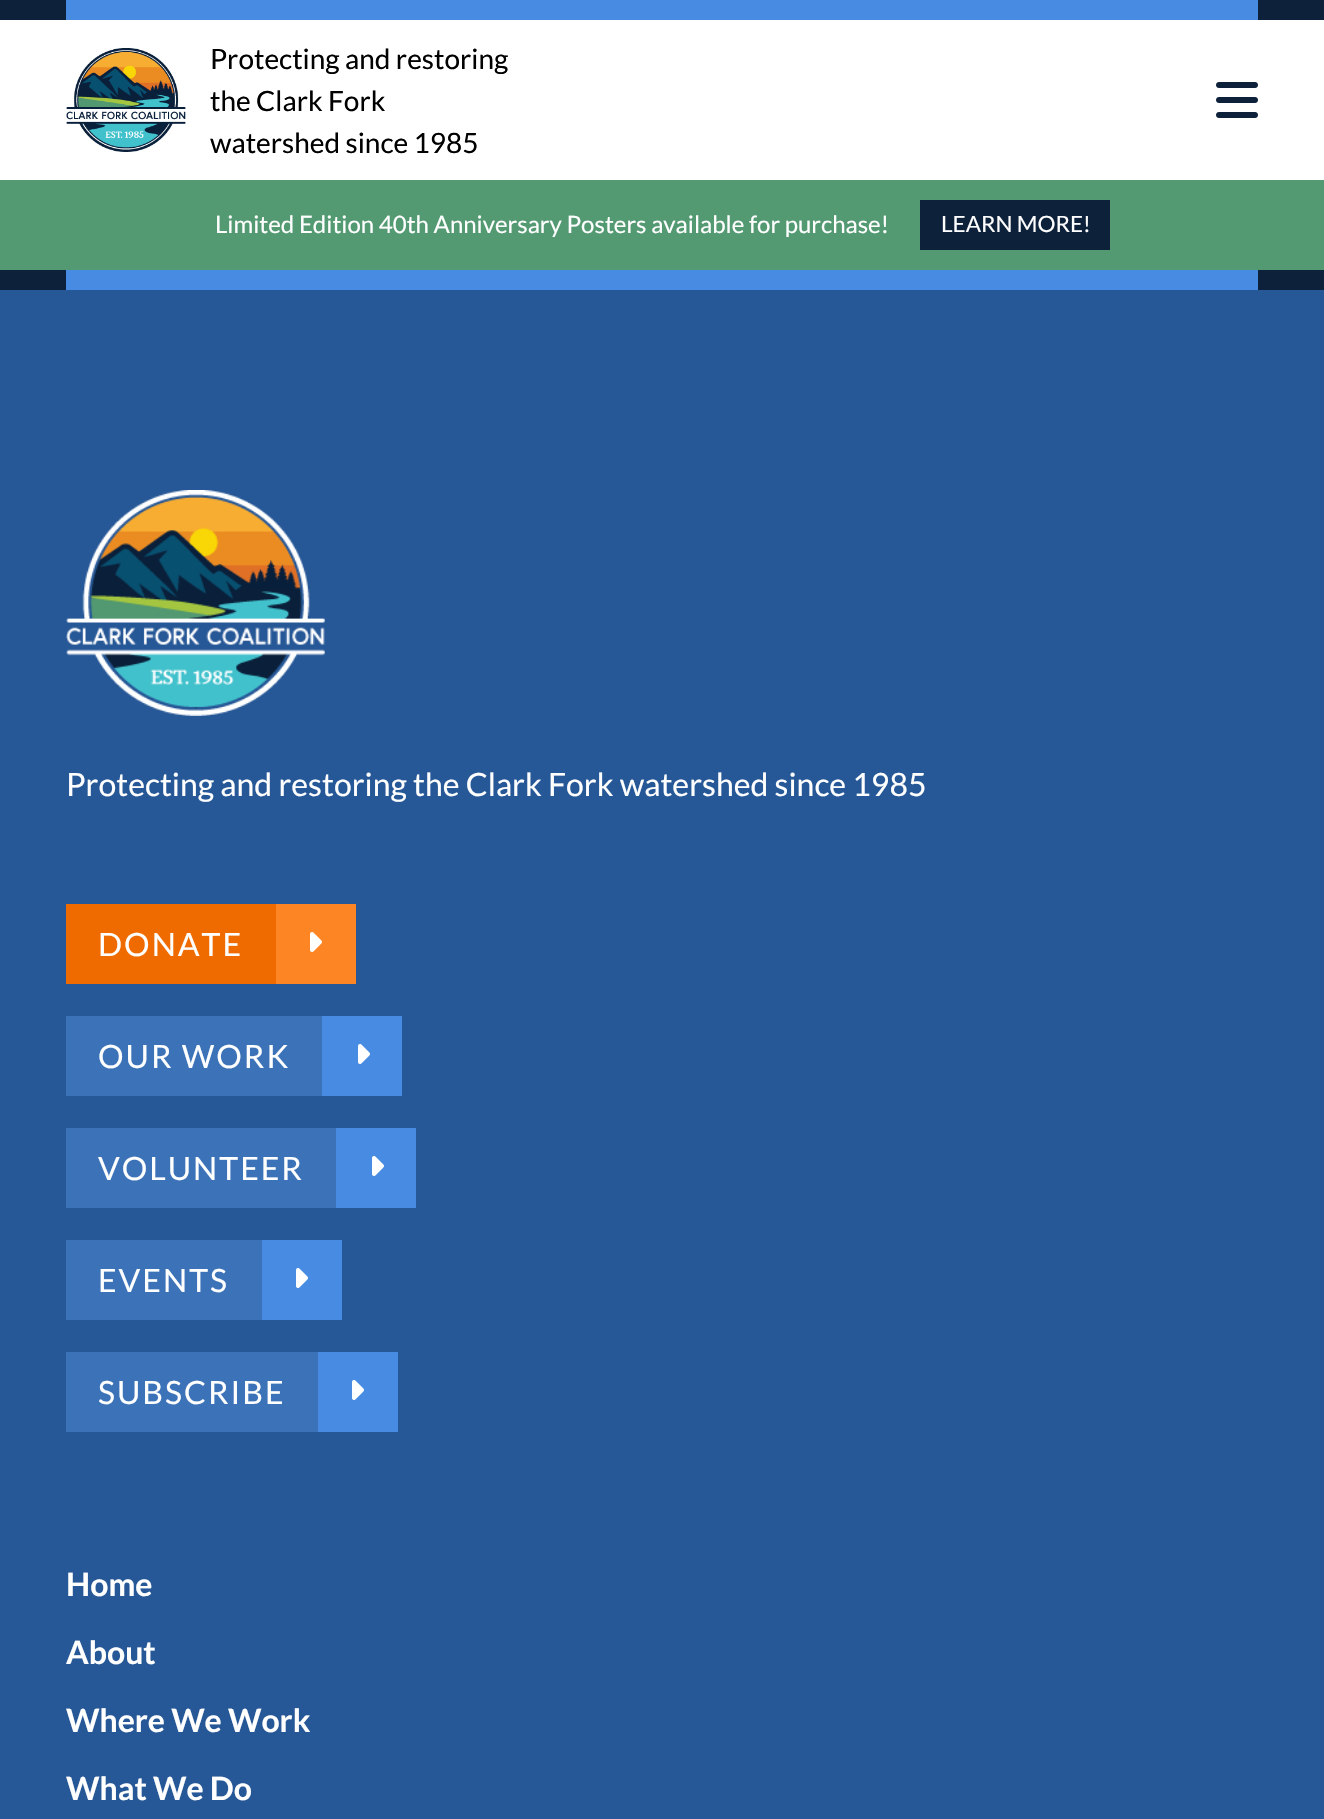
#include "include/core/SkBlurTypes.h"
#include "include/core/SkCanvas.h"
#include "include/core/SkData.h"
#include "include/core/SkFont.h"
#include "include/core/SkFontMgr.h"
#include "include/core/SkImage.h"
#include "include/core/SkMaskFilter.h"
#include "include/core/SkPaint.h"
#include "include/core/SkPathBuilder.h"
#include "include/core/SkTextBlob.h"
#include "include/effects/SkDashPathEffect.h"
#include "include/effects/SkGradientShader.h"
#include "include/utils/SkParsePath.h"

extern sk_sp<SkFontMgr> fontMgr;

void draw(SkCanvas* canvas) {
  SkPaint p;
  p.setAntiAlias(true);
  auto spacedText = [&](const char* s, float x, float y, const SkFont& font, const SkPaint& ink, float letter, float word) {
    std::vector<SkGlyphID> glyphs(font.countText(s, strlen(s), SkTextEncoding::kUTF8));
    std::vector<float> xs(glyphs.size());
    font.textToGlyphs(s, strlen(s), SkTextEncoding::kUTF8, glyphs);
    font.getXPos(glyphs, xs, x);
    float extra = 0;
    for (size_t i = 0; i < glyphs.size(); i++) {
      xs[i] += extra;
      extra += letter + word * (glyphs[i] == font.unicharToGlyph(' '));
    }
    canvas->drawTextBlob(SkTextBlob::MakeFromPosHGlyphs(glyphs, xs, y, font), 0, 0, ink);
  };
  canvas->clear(SkColorSetRGB(13, 33, 59));
  p.setColor(SkColorSetRGB(72, 139, 226));
  canvas->drawRect(SkRect::MakeLTRB(66, 0, 1258, 20), p);
  p.setColor(SK_ColorWHITE);
  canvas->drawRect(SkRect::MakeLTRB(0, 20, 1324, 180), p);
  canvas->drawImageRect(SkImages::DeferredFromEncodedData(SkData::MakeFromFileName("images/1.png")), SkRect::MakeLTRB(66, 48, 186, 152), SkSamplingOptions());
  canvas->drawImageRect(SkImages::DeferredFromEncodedData(SkData::MakeFromFileName("images/2.png")), SkRect::MakeLTRB(1216, 82, 1258, 118), SkSamplingOptions());
  p.setColor(SkColorSetRGB(83, 154, 114));
  canvas->drawRect(SkRect::MakeLTRB(0, 180, 1324, 270), p);
  p.setColor(SkColorSetRGB(13, 33, 59));
  canvas->drawRect(SkRect::MakeLTRB(920, 200, 1110, 250), p);
  p.setColor(SkColorSetRGB(72, 139, 226));
  canvas->drawRect(SkRect::MakeLTRB(66, 270, 1258, 290), p);
  p.setColor(SkColorSetRGB(38, 87, 150));
  canvas->drawRect(SkRect::MakeLTRB(0, 290, 1324, 1819), p);
  canvas->drawImageRect(SkImages::DeferredFromEncodedData(SkData::MakeFromFileName("images/3.png")), SkRect::MakeLTRB(66, 490, 325, 716), SkSamplingOptions());
  p.setColor(SkColorSetRGB(239, 107, 0));
  canvas->drawRect(SkRect::MakeLTRB(66, 904, 276, 984), p);
  p.setColor(SkColorSetRGB(253, 133, 36));
  canvas->drawRect(SkRect::MakeLTRB(276, 904, 356, 984), p);
  canvas->drawImageRect(SkImages::DeferredFromEncodedData(SkData::MakeFromFileName("images/4.png")), SkRect::MakeLTRB(310, 932, 322, 952), SkSamplingOptions());
  p.setColor(SkColorSetRGB(60, 114, 184));
  canvas->drawRect(SkRect::MakeLTRB(66, 1016, 322, 1096), p);
  p.setColor(SkColorSetRGB(72, 139, 226));
  canvas->drawRect(SkRect::MakeLTRB(322, 1016, 402, 1096), p);
  canvas->drawImageRect(SkImages::DeferredFromEncodedData(SkData::MakeFromFileName("images/5.png")), SkRect::MakeLTRB(358, 1044, 370, 1064), SkSamplingOptions());
  p.setColor(SkColorSetRGB(60, 114, 184));
  canvas->drawRect(SkRect::MakeLTRB(66, 1128, 336, 1208), p);
  p.setColor(SkColorSetRGB(72, 139, 226));
  canvas->drawRect(SkRect::MakeLTRB(336, 1128, 416, 1208), p);
  canvas->drawImageRect(SkImages::DeferredFromEncodedData(SkData::MakeFromFileName("images/5.png")), SkRect::MakeLTRB(372, 1156, 384, 1176), SkSamplingOptions());
  p.setColor(SkColorSetRGB(60, 114, 184));
  canvas->drawRect(SkRect::MakeLTRB(66, 1240, 262, 1320), p);
  p.setColor(SkColorSetRGB(72, 139, 226));
  canvas->drawRect(SkRect::MakeLTRB(262, 1240, 342, 1320), p);
  canvas->drawImageRect(SkImages::DeferredFromEncodedData(SkData::MakeFromFileName("images/5.png")), SkRect::MakeLTRB(296, 1268, 308, 1288), SkSamplingOptions());
  p.setColor(SkColorSetRGB(60, 114, 184));
  canvas->drawRect(SkRect::MakeLTRB(66, 1352, 318, 1432), p);
  p.setColor(SkColorSetRGB(72, 139, 226));
  canvas->drawRect(SkRect::MakeLTRB(318, 1352, 398, 1432), p);
  canvas->drawImageRect(SkImages::DeferredFromEncodedData(SkData::MakeFromFileName("images/5.png")), SkRect::MakeLTRB(352, 1380, 364, 1400), SkSamplingOptions());
  SkFont font1(fontMgr->matchFamilyStyle("Lato", SkFontStyle::Normal()), 28);
  font1.setSubpixel(true);
  p.setColor(SK_ColorBLACK);
  canvas->drawString("Protecting and restoring", 210, 69, font1, p);
  canvas->drawString("the Clark Fork", 210, 111, font1, p);
  canvas->drawString("watershed since 1985", 210, 153, font1, p);
  SkFont font2(fontMgr->matchFamilyStyle("Lato", SkFontStyle::Normal()), 24);
  font2.setSubpixel(true);
  p.setColor(SK_ColorWHITE);
  canvas->drawString("Limited Edition 40th Anniversary Posters available for purchase!", 215, 233, font2, p);
  SkFont font3(fontMgr->matchFamilyStyle("Lato", SkFontStyle::Normal()), 22.5f);
  font3.setSubpixel(true);
  canvas->drawString("LEARN MORE!", 941, 232, font3, p);
  SkFont font4(fontMgr->matchFamilyStyle("Lato", SkFontStyle::Normal()), 32);
  font4.setSubpixel(true);
  canvas->drawString("Protecting and restoring the Clark Fork watershed since 1985", 66, 796, font4, p);
  spacedText("DONATE", 98, 956, font4, p, 2, 0);
  spacedText("OUR WORK", 98, 1068, font4, p, 2, 0);
  spacedText("VOLUNTEER", 98, 1180, font4, p, 2, 0);
  spacedText("EVENTS", 98, 1292, font4, p, 2, 0);
  spacedText("SUBSCRIBE", 98, 1404, font4, p, 2, 0);
  SkFont font5(fontMgr->matchFamilyStyle("Lato", SkFontStyle::Bold()), 32);
  font5.setSubpixel(true);
  canvas->drawString("Home", 66, 1596, font5, p);
  canvas->drawString("About", 66, 1664, font5, p);
  canvas->drawString("Where We Work", 66, 1732, font5, p);
  canvas->drawString("What We Do", 66, 1800, font5, p);
}
